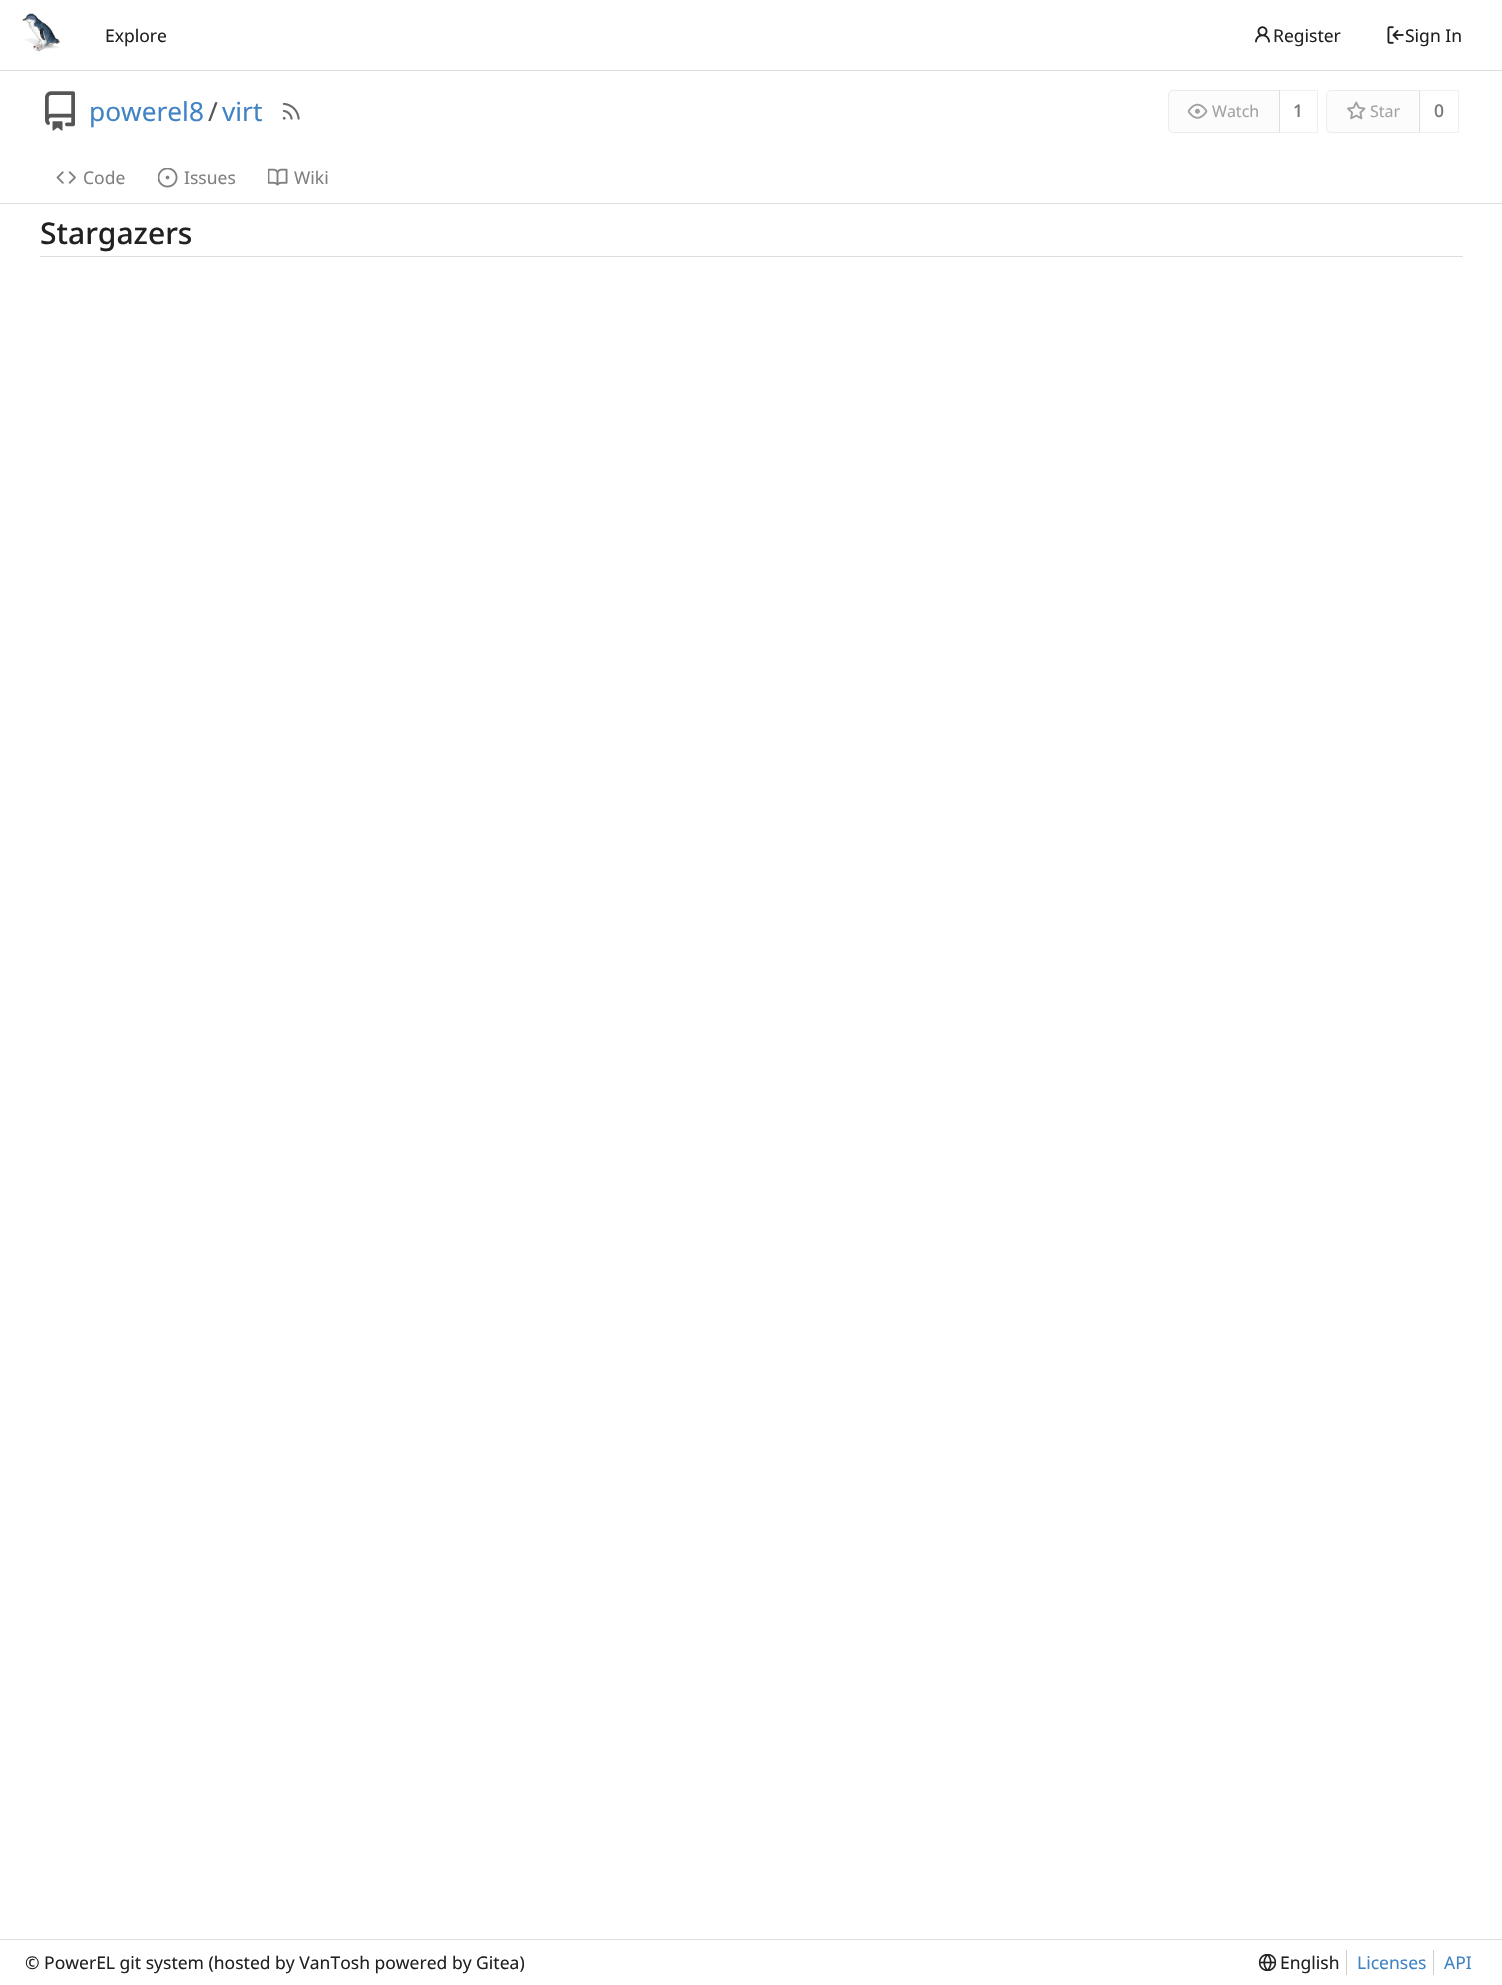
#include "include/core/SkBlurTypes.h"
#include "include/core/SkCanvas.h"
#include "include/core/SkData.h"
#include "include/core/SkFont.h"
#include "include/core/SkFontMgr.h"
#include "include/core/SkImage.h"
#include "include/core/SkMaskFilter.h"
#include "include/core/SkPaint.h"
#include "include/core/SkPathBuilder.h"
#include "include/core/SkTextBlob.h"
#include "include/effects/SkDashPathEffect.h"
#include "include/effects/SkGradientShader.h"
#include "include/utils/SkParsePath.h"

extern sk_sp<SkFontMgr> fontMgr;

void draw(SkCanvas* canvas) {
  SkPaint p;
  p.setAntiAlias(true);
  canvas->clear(SK_ColorWHITE);
  p.setColor(SkColorSetRGB(222, 222, 222));
  canvas->drawRect(SkRect::MakeLTRB(0, 70, 1502, 71), p);
  canvas->drawImageRect(SkImages::DeferredFromEncodedData(SkData::MakeFromFileName("images/1.png")), SkRect::MakeLTRB(22, 13, 60, 52), SkSamplingOptions());
  canvas->drawImageRect(SkImages::DeferredFromEncodedData(SkData::MakeFromFileName("images/2.png")), SkRect::MakeLTRB(1255, 26, 1270, 43), SkSamplingOptions());
  canvas->drawImageRect(SkImages::DeferredFromEncodedData(SkData::MakeFromFileName("images/3.png")), SkRect::MakeLTRB(1387, 26, 1404, 44), SkSamplingOptions());
  canvas->drawImageRect(SkImages::DeferredFromEncodedData(SkData::MakeFromFileName("images/4.png")), SkRect::MakeLTRB(45, 91, 75, 131), SkSamplingOptions());
  canvas->drawImageRect(SkImages::DeferredFromEncodedData(SkData::MakeFromFileName("images/5.png")), SkRect::MakeLTRB(282, 102, 300, 120), SkSamplingOptions());
  p.setColor(SkColorSetRGB(252, 252, 252));
  canvas->drawPath(SkPathBuilder().moveTo(1173, 90.5f).lineTo(1279.5f, 90.5f).lineTo(1279.5f, 132.5f).lineTo(1173, 132.5f).cubicTo(1170.5f, 132.5f, 1168.5f, 130.5f, 1168.5f, 128).lineTo(1168.5f, 95).cubicTo(1168.5f, 92.5f, 1170.5f, 90.5f, 1173, 90.5f).close().detach(), p);
  p.setStyle(SkPaint::kStroke_Style);
  p.setStrokeWidth(1);
  p.setColor(SkColorSetRGB(236, 236, 236));
  canvas->drawPath(SkPathBuilder().moveTo(1173, 90.5f).lineTo(1279.5f, 90.5f).lineTo(1279.5f, 132.5f).lineTo(1173, 132.5f).cubicTo(1170.5f, 132.5f, 1168.5f, 130.5f, 1168.5f, 128).lineTo(1168.5f, 95).cubicTo(1168.5f, 92.5f, 1170.5f, 90.5f, 1173, 90.5f).close().detach(), p);
  canvas->drawImageRect(SkImages::DeferredFromEncodedData(SkData::MakeFromFileName("images/6.png")), SkRect::MakeLTRB(1188, 103, 1208, 119), SkSamplingOptions());
  p.setColor(SkColorSetARGB(15, 0, 0, 0));
  canvas->drawRect(SkRect::MakeLTRB(1279.5f, 90.5f, 1317.5f, 132.5f), p);
  p.setStyle(SkPaint::kFill_Style);
  p.setColor(SkColorSetRGB(252, 252, 252));
  canvas->drawPath(SkPathBuilder().moveTo(1331, 90.5f).lineTo(1419.5f, 90.5f).lineTo(1419.5f, 132.5f).lineTo(1331, 132.5f).cubicTo(1328.5f, 132.5f, 1326.5f, 130.5f, 1326.5f, 128).lineTo(1326.5f, 95).cubicTo(1326.5f, 92.5f, 1328.5f, 90.5f, 1331, 90.5f).close().detach(), p);
  p.setStyle(SkPaint::kStroke_Style);
  p.setColor(SkColorSetRGB(236, 236, 236));
  canvas->drawPath(SkPathBuilder().moveTo(1331, 90.5f).lineTo(1419.5f, 90.5f).lineTo(1419.5f, 132.5f).lineTo(1331, 132.5f).cubicTo(1328.5f, 132.5f, 1326.5f, 130.5f, 1326.5f, 128).lineTo(1326.5f, 95).cubicTo(1326.5f, 92.5f, 1328.5f, 90.5f, 1331, 90.5f).close().detach(), p);
  canvas->drawImageRect(SkImages::DeferredFromEncodedData(SkData::MakeFromFileName("images/7.png")), SkRect::MakeLTRB(1347, 101, 1366, 120), SkSamplingOptions());
  p.setColor(SkColorSetARGB(15, 0, 0, 0));
  canvas->drawRect(SkRect::MakeLTRB(1419.5f, 90.5f, 1458.5f, 132.5f), p);
  canvas->drawImageRect(SkImages::DeferredFromEncodedData(SkData::MakeFromFileName("images/8.png")), SkRect::MakeLTRB(56, 171, 76, 184), SkSamplingOptions());
  canvas->drawImageRect(SkImages::DeferredFromEncodedData(SkData::MakeFromFileName("images/9.png")), SkRect::MakeLTRB(158, 168, 178, 188), SkSamplingOptions());
  canvas->drawImageRect(SkImages::DeferredFromEncodedData(SkData::MakeFromFileName("images/10.png")), SkRect::MakeLTRB(268, 168, 288, 186), SkSamplingOptions());
  p.setStyle(SkPaint::kFill_Style);
  p.setColor(SkColorSetRGB(222, 222, 222));
  canvas->drawRect(SkRect::MakeLTRB(0, 203, 1502, 204), p);
  canvas->drawRect(SkRect::MakeLTRB(40, 256, 1463, 257), p);
  canvas->drawRect(SkRect::MakeLTRB(0, 1939, 1502, 1940), p);
  canvas->drawImageRect(SkImages::DeferredFromEncodedData(SkData::MakeFromFileName("images/11.png")), SkRect::MakeLTRB(1259, 1954, 1276, 1971), SkSamplingOptions());
  p.setColor(SkColorSetRGB(206, 206, 206));
  canvas->drawRect(SkRect::MakeLTRB(1346, 1950, 1347, 1975), p);
  canvas->drawRect(SkRect::MakeLTRB(1433, 1950, 1434, 1975), p);
  SkFont font1(fontMgr->matchFamilyStyle("Noto Sans", SkFontStyle::Normal()), 17.5f);
  font1.setSubpixel(true);
  p.setColor(SkColorSetRGB(33, 33, 33));
  canvas->drawString("Explore", 105, 42, font1, p);
  canvas->drawString("Register", 1273, 42, font1, p);
  canvas->drawString("Sign In", 1405, 42, font1, p);
  SkFont font2(fontMgr->matchFamilyStyle("Noto Sans", SkFontStyle::Normal()), 26.25f);
  font2.setSubpixel(true);
  p.setColor(SkColorSetRGB(65, 131, 196));
  canvas->drawString("powerel8", 89, 121, font2, p);
  p.setColor(SkColorSetRGB(85, 85, 85));
  canvas->drawString("/", 208, 121, font2, p);
  p.setColor(SkColorSetRGB(65, 131, 196));
  canvas->drawString("virt", 222, 121, font2, p);
  SkFont font3(fontMgr->matchFamilyStyle("Noto Sans", SkFontStyle::Normal()), 16);
  font3.setSubpixel(true);
  p.setColor(SkColorSetRGB(162, 162, 162));
  canvas->drawString("Watch", 1212, 117, font3, p);
  SkFont font4(fontMgr->matchFamilyStyle("Noto Sans", SkFontStyle(500, SkFontStyle::kNormal_Width, SkFontStyle::kUpright_Slant)), 17.5f);
  font4.setSubpixel(true);
  p.setColor(SkColorSetRGB(119, 119, 119));
  canvas->drawString("1", 1293, 117, font4, p);
  p.setColor(SkColorSetRGB(162, 162, 162));
  canvas->drawString("Star", 1370, 117, font3, p);
  p.setColor(SkColorSetRGB(119, 119, 119));
  canvas->drawString("0", 1434, 117, font4, p);
  p.setColor(SkColorSetRGB(128, 128, 128));
  canvas->drawString("Code", 83, 184, font1, p);
  canvas->drawString("Issues", 184, 184, font1, p);
  canvas->drawString("Wiki", 294, 184, font1, p);
  SkFont font5(fontMgr->matchFamilyStyle("Noto Sans", SkFontStyle(500, SkFontStyle::kNormal_Width, SkFontStyle::kUpright_Slant)), 30);
  font5.setSubpixel(true);
  p.setColor(SkColorSetRGB(33, 33, 33));
  canvas->drawString("Stargazers", 40, 244, font5, p);
  canvas->drawString("© PowerEL git system (hosted by VanTosh powered by Gitea)", 25, 1969, font1, p);
  canvas->drawString("English", 1280, 1969, font1, p);
  p.setColor(SkColorSetRGB(65, 131, 196));
  canvas->drawString("Licenses", 1357, 1969, font1, p);
  canvas->drawString("API", 1444, 1969, font1, p);
}
